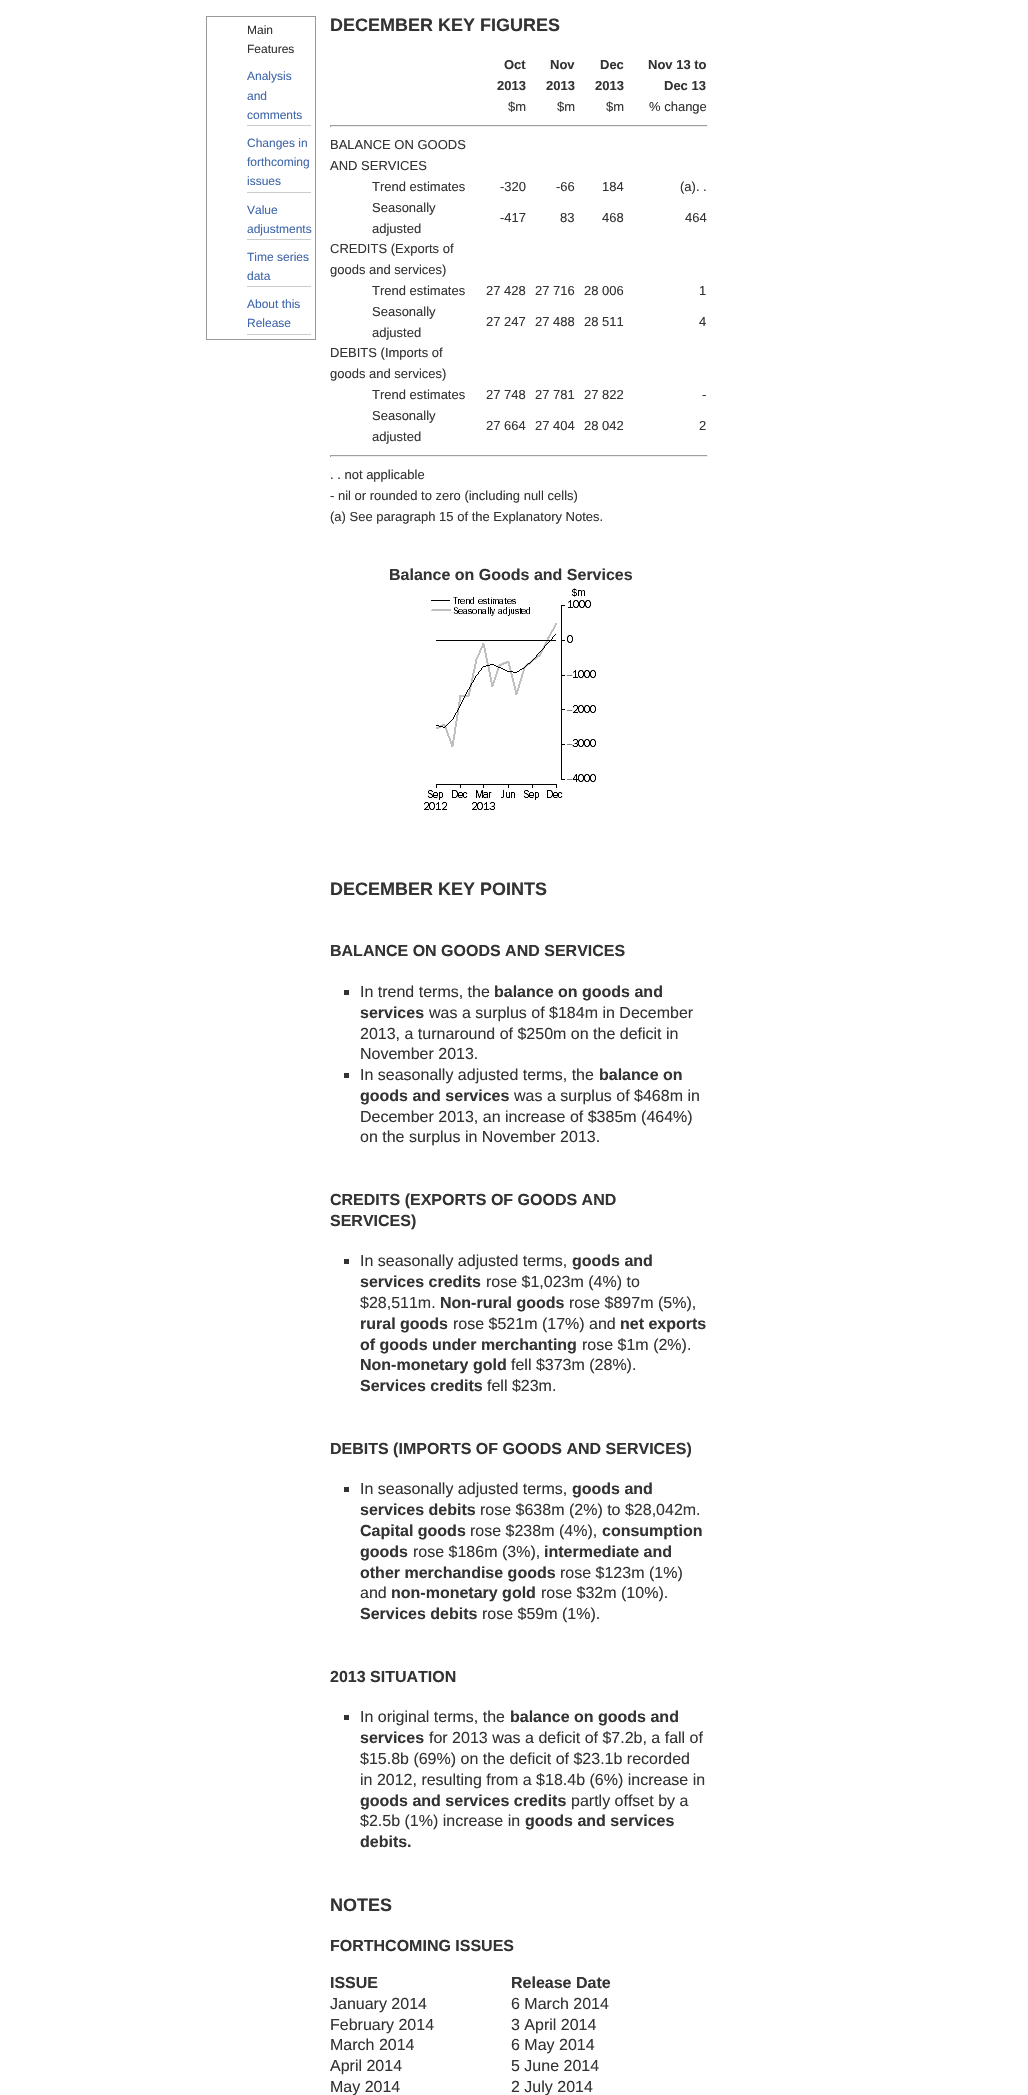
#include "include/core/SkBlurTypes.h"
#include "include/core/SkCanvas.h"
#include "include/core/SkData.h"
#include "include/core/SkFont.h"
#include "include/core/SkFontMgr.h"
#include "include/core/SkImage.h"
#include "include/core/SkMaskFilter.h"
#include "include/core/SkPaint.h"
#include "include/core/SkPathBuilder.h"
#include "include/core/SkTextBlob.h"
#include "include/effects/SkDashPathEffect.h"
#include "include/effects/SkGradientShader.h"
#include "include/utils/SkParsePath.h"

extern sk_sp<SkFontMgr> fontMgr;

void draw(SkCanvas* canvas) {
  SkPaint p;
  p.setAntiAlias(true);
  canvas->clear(SK_ColorWHITE);
  p.setStyle(SkPaint::kStroke_Style);
  p.setStrokeWidth(1);
  p.setColor(SkColorSetRGB(153, 153, 153));
  canvas->drawRect(SkRect::MakeLTRB(206.5f, 16.5f, 315.5f, 339.5f), p);
  p.setStyle(SkPaint::kFill_Style);
  p.setColor(SkColorSetRGB(204, 204, 204));
  canvas->drawRect(SkRect::MakeLTRB(247, 125, 311, 126), p);
  canvas->drawRect(SkRect::MakeLTRB(247, 192, 311, 193), p);
  canvas->drawRect(SkRect::MakeLTRB(247, 239, 311, 240), p);
  canvas->drawRect(SkRect::MakeLTRB(247, 286, 311, 287), p);
  canvas->drawRect(SkRect::MakeLTRB(247, 334, 311, 335), p);
  p.setColor(SkColorSetRGB(159, 159, 159));
  canvas->drawRect(SkRect::MakeLTRB(330, 125, 708, 126), p);
  p.setColor(SkColorSetRGB(238, 238, 238));
  canvas->drawRect(SkRect::MakeLTRB(707, 125, 708, 127), p);
  canvas->drawRect(SkRect::MakeLTRB(330, 126, 708, 127), p);
  p.setColor(SkColorSetRGB(159, 159, 159));
  canvas->drawRect(SkRect::MakeLTRB(330, 125, 331, 127), p);
  canvas->drawRect(SkRect::MakeLTRB(330, 455, 708, 456), p);
  p.setColor(SkColorSetRGB(238, 238, 238));
  canvas->drawRect(SkRect::MakeLTRB(707, 455, 708, 457), p);
  canvas->drawRect(SkRect::MakeLTRB(330, 456, 708, 457), p);
  p.setColor(SkColorSetRGB(159, 159, 159));
  canvas->drawRect(SkRect::MakeLTRB(330, 455, 331, 457), p);
  canvas->drawImageRect(SkImages::DeferredFromEncodedData(SkData::MakeFromFileName("images/1.png")), SkRect::MakeLTRB(424, 588, 596, 810), SkSamplingOptions());
  p.setColor(SkColorSetRGB(51, 51, 51));
  canvas->drawRect(SkRect::MakeLTRB(344, 990, 349, 995), p);
  canvas->drawRect(SkRect::MakeLTRB(344, 1073, 349, 1078), p);
  canvas->drawRect(SkRect::MakeLTRB(344, 1259, 349, 1264), p);
  canvas->drawRect(SkRect::MakeLTRB(344, 1487, 349, 1492), p);
  canvas->drawRect(SkRect::MakeLTRB(344, 1715, 349, 1720), p);
  SkFont font1(fontMgr->matchFamilyStyle("Liberation Sans", SkFontStyle::Normal()), 12);
  font1.setSubpixel(true);
  canvas->drawString("Main", 247, 34, font1, p);
  canvas->drawString("Features", 247, 53, font1, p);
  p.setColor(SkColorSetRGB(63, 103, 171));
  canvas->drawString("Analysis", 247, 80, font1, p);
  canvas->drawString("and", 247, 100, font1, p);
  canvas->drawString("comments", 247, 119, font1, p);
  canvas->drawString("Changes in", 247, 147, font1, p);
  canvas->drawString("forthcoming", 247, 166, font1, p);
  canvas->drawString("issues", 247, 185, font1, p);
  canvas->drawString("Value", 247, 214, font1, p);
  canvas->drawString("adjustments", 247, 233, font1, p);
  canvas->drawString("Time series", 247, 261, font1, p);
  canvas->drawString("data", 247, 280, font1, p);
  canvas->drawString("About this", 247, 308, font1, p);
  canvas->drawString("Release", 247, 327, font1, p);
  SkFont font2(fontMgr->matchFamilyStyle("Liberation Sans", SkFontStyle::Bold()), 18);
  font2.setSubpixel(true);
  p.setColor(SkColorSetRGB(51, 51, 51));
  canvas->drawString("DECEMBER KEY FIGURES", 330, 31, font2, p);
  SkFont font3(fontMgr->matchFamilyStyle("Liberation Sans", SkFontStyle::Bold()), 13);
  font3.setSubpixel(true);
  canvas->drawString("Oct", 504, 69, font3, p);
  canvas->drawString("2013", 497, 90, font3, p);
  canvas->drawString("Nov", 550, 69, font3, p);
  canvas->drawString("2013", 546, 90, font3, p);
  canvas->drawString("Dec", 600, 69, font3, p);
  canvas->drawString("2013", 595, 90, font3, p);
  canvas->drawString("Nov 13 to", 648, 69, font3, p);
  canvas->drawString("Dec 13", 664, 90, font3, p);
  SkFont font4(fontMgr->matchFamilyStyle("Liberation Sans", SkFontStyle::Normal()), 13);
  font4.setSubpixel(true);
  canvas->drawString("$m", 508, 111, font4, p);
  canvas->drawString("$m", 557, 111, font4, p);
  canvas->drawString("$m", 606, 111, font4, p);
  canvas->drawString("% change", 649, 111, font4, p);
  canvas->drawString("BALANCE ON GOODS", 330, 149, font4, p);
  canvas->drawString("AND SERVICES", 330, 170, font4, p);
  canvas->drawString("Trend estimates", 372, 191, font4, p);
  canvas->drawString("-320", 500, 191, font4, p);
  canvas->drawString("-66", 556, 191, font4, p);
  canvas->drawString("184", 602, 191, font4, p);
  canvas->drawString("(a). .", 680, 191, font4, p);
  canvas->drawString("Seasonally", 372, 212, font4, p);
  canvas->drawString("adjusted", 372, 233, font4, p);
  canvas->drawString("-417", 500, 222, font4, p);
  canvas->drawString("83", 560, 222, font4, p);
  canvas->drawString("468", 602, 222, font4, p);
  canvas->drawString("464", 685, 222, font4, p);
  canvas->drawString("CREDITS (Exports of", 330, 253, font4, p);
  canvas->drawString("goods and services)", 330, 274, font4, p);
  canvas->drawString("Trend estimates", 372, 295, font4, p);
  canvas->drawString("27 428", 486, 295, font4, p);
  canvas->drawString("27 716", 535, 295, font4, p);
  canvas->drawString("28 006", 584, 295, font4, p);
  canvas->drawString("1", 699, 295, font4, p);
  canvas->drawString("Seasonally", 372, 316, font4, p);
  canvas->drawString("adjusted", 372, 337, font4, p);
  canvas->drawString("27 247", 486, 326, font4, p);
  canvas->drawString("27 488", 535, 326, font4, p);
  canvas->drawString("28 511", 584, 326, font4, p);
  canvas->drawString("4", 699, 326, font4, p);
  canvas->drawString("DEBITS (Imports of", 330, 357, font4, p);
  canvas->drawString("goods and services)", 330, 378, font4, p);
  canvas->drawString("Trend estimates", 372, 399, font4, p);
  canvas->drawString("27 748", 486, 399, font4, p);
  canvas->drawString("27 781", 535, 399, font4, p);
  canvas->drawString("27 822", 584, 399, font4, p);
  canvas->drawString("-", 702, 399, font4, p);
  canvas->drawString("Seasonally", 372, 420, font4, p);
  canvas->drawString("adjusted", 372, 441, font4, p);
  canvas->drawString("27 664", 486, 430, font4, p);
  canvas->drawString("27 404", 535, 430, font4, p);
  canvas->drawString("28 042", 584, 430, font4, p);
  canvas->drawString("2", 699, 430, font4, p);
  canvas->drawString(". . not applicable", 330, 479, font4, p);
  canvas->drawString("- nil or rounded to zero (including null cells)", 330, 500, font4, p);
  canvas->drawString("(a) See paragraph 15 of the Explanatory Notes.", 330, 521, font4, p);
  SkFont font5(fontMgr->matchFamilyStyle("Liberation Sans", SkFontStyle::Bold()), 16);
  font5.setSubpixel(true);
  canvas->drawString("Balance on Goods and Services", 389, 580, font5, p);
  canvas->drawString("DECEMBER KEY POINTS", 330, 895, font2, p);
  canvas->drawString("BALANCE ON GOODS AND SERVICES", 330, 956, font5, p);
  SkFont font6(fontMgr->matchFamilyStyle("Liberation Sans", SkFontStyle::Normal()), 16);
  font6.setSubpixel(true);
  canvas->drawString("In trend terms, the", 360, 997, font6, p);
  canvas->drawString("balance on goods and", 494, 997, font5, p);
  canvas->drawString("services", 360, 1018, font5, p);
  canvas->drawString("was a surplus of $184m in December", 429, 1018, font6, p);
  canvas->drawString("2013, a turnaround of $250m on the deficit in", 360, 1039, font6, p);
  canvas->drawString("November 2013.", 360, 1059, font6, p);
  canvas->drawString("In seasonally adjusted terms, the", 360, 1080, font6, p);
  canvas->drawString("balance on", 599, 1080, font5, p);
  canvas->drawString("goods and services", 360, 1101, font5, p);
  canvas->drawString("was a surplus of $468m in", 514, 1101, font6, p);
  canvas->drawString("December 2013, an increase of $385m (464%)", 360, 1122, font6, p);
  canvas->drawString("on the surplus in November 2013.", 360, 1142, font6, p);
  canvas->drawString("CREDITS (EXPORTS OF GOODS AND", 330, 1205, font5, p);
  canvas->drawString("SERVICES)", 330, 1226, font5, p);
  canvas->drawString("In seasonally adjusted terms,", 360, 1266, font6, p);
  canvas->drawString("goods and", 572, 1266, font5, p);
  canvas->drawString("services credits", 360, 1287, font5, p);
  canvas->drawString("rose $1,023m (4%) to", 486, 1287, font6, p);
  canvas->drawString("$28,511m.", 360, 1308, font6, p);
  canvas->drawString("Non-rural goods", 440, 1308, font5, p);
  canvas->drawString("rose $897m (5%),", 569, 1308, font6, p);
  canvas->drawString("rural goods", 360, 1329, font5, p);
  canvas->drawString("rose $521m (17%) and", 453, 1329, font6, p);
  canvas->drawString("net exports", 620, 1329, font5, p);
  canvas->drawString("of goods under merchanting", 360, 1350, font5, p);
  canvas->drawString("rose $1m (2%).", 582, 1350, font6, p);
  canvas->drawString("Non-monetary gold", 360, 1370, font5, p);
  canvas->drawString("fell $373m (28%).", 511, 1370, font6, p);
  canvas->drawString("Services credits", 360, 1391, font5, p);
  canvas->drawString("fell $23m.", 487, 1391, font6, p);
  canvas->drawString("DEBITS (IMPORTS OF GOODS AND SERVICES)", 330, 1454, font5, p);
  canvas->drawString("In seasonally adjusted terms,", 360, 1494, font6, p);
  canvas->drawString("goods and", 572, 1494, font5, p);
  canvas->drawString("services debits", 360, 1515, font5, p);
  canvas->drawString("rose $638m (2%) to $28,042m.", 480, 1515, font6, p);
  canvas->drawString("Capital goods", 360, 1536, font5, p);
  canvas->drawString("rose $238m (4%),", 470, 1536, font6, p);
  canvas->drawString("consumption", 602, 1536, font5, p);
  canvas->drawString("goods", 360, 1557, font5, p);
  canvas->drawString("rose $186m (3%),", 413, 1557, font6, p);
  canvas->drawString("intermediate and", 544, 1557, font5, p);
  canvas->drawString("other merchandise goods", 360, 1578, font5, p);
  canvas->drawString("rose $123m (1%)", 560, 1578, font6, p);
  canvas->drawString("and", 360, 1598, font6, p);
  canvas->drawString("non-monetary gold", 391, 1598, font5, p);
  canvas->drawString("rose $32m (10%).", 541, 1598, font6, p);
  canvas->drawString("Services debits", 360, 1619, font5, p);
  canvas->drawString("rose $59m (1%).", 482, 1619, font6, p);
  canvas->drawString("2013 SITUATION", 330, 1682, font5, p);
  canvas->drawString("In original terms, the", 360, 1722, font6, p);
  canvas->drawString("balance on goods and", 510, 1722, font5, p);
  canvas->drawString("services", 360, 1743, font5, p);
  canvas->drawString("for 2013 was a deficit of $7.2b, a fall of", 429, 1743, font6, p);
  canvas->drawString("$15.8b (69%) on the deficit of $23.1b recorded", 360, 1764, font6, p);
  canvas->drawString("in 2012, resulting from a $18.4b (6%) increase in", 360, 1785, font6, p);
  canvas->drawString("goods and services credits", 360, 1806, font5, p);
  canvas->drawString("partly offset by a", 571, 1806, font6, p);
  canvas->drawString("$2.5b (1%) increase in", 360, 1826, font6, p);
  canvas->drawString("goods and services", 525, 1826, font5, p);
  canvas->drawString("debits.", 360, 1847, font5, p);
  canvas->drawString("NOTES", 330, 1911, font2, p);
  canvas->drawString("FORTHCOMING ISSUES", 330, 1951, font5, p);
  canvas->drawString("ISSUE", 330, 1988, font5, p);
  canvas->drawString("Release Date", 511, 1988, font5, p);
  canvas->drawString("January 2014", 330, 2009, font6, p);
  canvas->drawString("6 March 2014", 511, 2009, font6, p);
  canvas->drawString("February 2014", 330, 2030, font6, p);
  canvas->drawString("3 April 2014", 511, 2030, font6, p);
  canvas->drawString("March 2014", 330, 2050, font6, p);
  canvas->drawString("6 May 2014", 511, 2050, font6, p);
  canvas->drawString("April 2014", 330, 2071, font6, p);
  canvas->drawString("5 June 2014", 511, 2071, font6, p);
  canvas->drawString("May 2014", 330, 2092, font6, p);
  canvas->drawString("2 July 2014", 511, 2092, font6, p);
}
